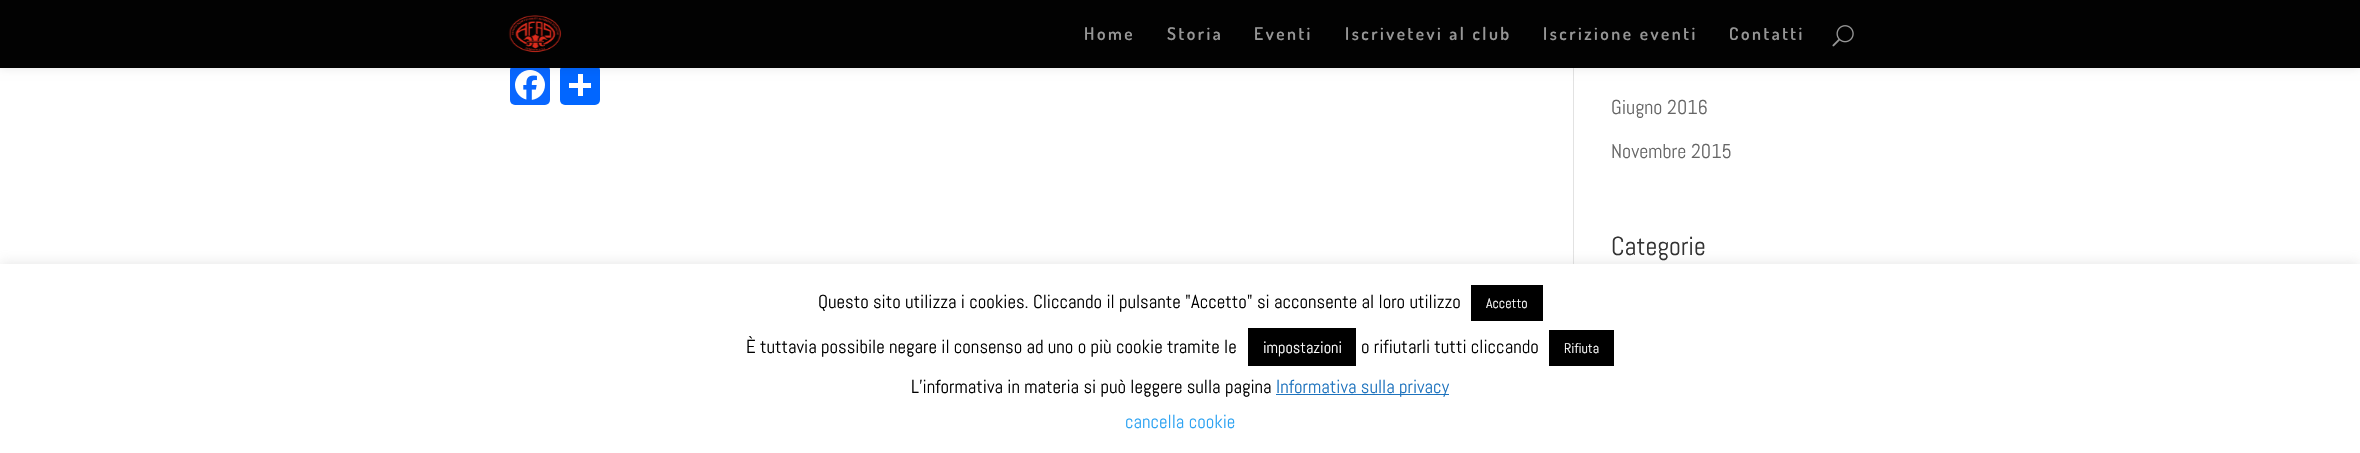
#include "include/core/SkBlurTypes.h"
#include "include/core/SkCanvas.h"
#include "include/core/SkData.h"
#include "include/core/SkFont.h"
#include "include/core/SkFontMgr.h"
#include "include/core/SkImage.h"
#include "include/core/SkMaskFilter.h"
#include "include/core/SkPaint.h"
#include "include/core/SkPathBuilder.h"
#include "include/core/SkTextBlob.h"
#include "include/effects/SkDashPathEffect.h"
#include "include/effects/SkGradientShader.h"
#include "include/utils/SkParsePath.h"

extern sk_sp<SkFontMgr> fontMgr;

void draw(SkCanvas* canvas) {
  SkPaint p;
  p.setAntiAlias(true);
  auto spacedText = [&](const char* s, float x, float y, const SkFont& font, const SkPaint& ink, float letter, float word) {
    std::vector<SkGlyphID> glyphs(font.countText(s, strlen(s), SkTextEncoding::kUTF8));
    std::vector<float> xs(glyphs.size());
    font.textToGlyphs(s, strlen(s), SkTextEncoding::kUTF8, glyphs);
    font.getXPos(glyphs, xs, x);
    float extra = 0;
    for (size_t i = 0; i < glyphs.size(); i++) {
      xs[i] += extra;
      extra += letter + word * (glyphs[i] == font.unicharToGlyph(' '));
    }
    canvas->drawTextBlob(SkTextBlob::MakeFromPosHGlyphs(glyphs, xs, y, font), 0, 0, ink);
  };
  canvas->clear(SK_ColorWHITE);
  p.setColor(SkColorSetRGB(226, 226, 226));
  canvas->drawRect(SkRect::MakeLTRB(1573, 68, 1574, 264), p);
  p.setColor(SkColorSetRGB(8, 102, 255));
  canvas->drawRoundRect(SkRect::MakeLTRB(510, 65, 550, 105), 5, 5, p);
  canvas->drawImageRect(SkImages::DeferredFromEncodedData(SkData::MakeFromFileName("images/3.png")), SkRect::MakeLTRB(515, 70, 545, 100), SkSamplingOptions());
  p.setColor(SkColorSetRGB(1, 102, 255));
  canvas->drawRoundRect(SkRect::MakeLTRB(560, 65, 600, 105), 5, 5, p);
  p.setColor(SK_ColorWHITE);
  canvas->drawRect(SkRect::MakeLTRB(578, 74, 583, 96), p);
  p.setColor(SkColorSetARGB(26, 0, 0, 0));
  p.setMaskFilter(SkMaskFilter::MakeBlur(kNormal_SkBlurStyle, 4.5f));
  canvas->drawRect(SkRect::MakeLTRB(0, 0, 2360, 68), p);
  p.setMaskFilter(nullptr);
  p.setColor(SkColorSetRGB(2, 2, 2));
  canvas->drawRect(SkRect::MakeLTRB(0, 0, 2360, 68), p);
  canvas->drawImageRect(SkImages::DeferredFromEncodedData(SkData::MakeFromFileName("images/1.png")), SkRect::MakeLTRB(508, 15, 562, 53), SkSamplingOptions());
  canvas->drawImageRect(SkImages::DeferredFromEncodedData(SkData::MakeFromFileName("images/2.png")), SkRect::MakeLTRB(1832, 25, 1854, 47), SkSamplingOptions());
  p.setColor(SK_ColorWHITE);
  canvas->drawRect(SkRect::MakeLTRB(569, 83, 591, 88), p);
  p.setColor(SkColorSetARGB(77, 172, 171, 171));
  p.setMaskFilter(SkMaskFilter::MakeBlur(kNormal_SkBlurStyle, 6));
  canvas->drawRect(SkRect::MakeLTRB(0, 263, 2360, 453), p);
  p.setMaskFilter(nullptr);
  p.setColor(SK_ColorWHITE);
  canvas->drawRect(SkRect::MakeLTRB(0, 264, 2360, 453), p);
  p.setColor(SK_ColorBLACK);
  canvas->drawRect(SkRect::MakeLTRB(1471, 285, 1543, 321), p);
  canvas->drawRect(SkRect::MakeLTRB(1248, 328, 1356, 366), p);
  canvas->drawRect(SkRect::MakeLTRB(1549, 330, 1614, 366), p);
  p.setColor(SkColorSetRGB(30, 115, 190));
  canvas->drawRect(SkRect::MakeLTRB(1276, 394, 1449, 395), p);
  SkFont font1(fontMgr->matchFamilyStyle("Dosis", SkFontStyle(600, SkFontStyle::kNormal_Width, SkFontStyle::kUpright_Slant)), 17.5f);
  font1.setSubpixel(true);
  p.setColor(SkColorSetRGB(150, 150, 150));
  spacedText("Home", 1084, 40, font1, p, 2.5f, 0);
  spacedText("Storia", 1167, 40, font1, p, 2.5f, 0);
  spacedText("Eventi", 1254, 40, font1, p, 2.5f, 0);
  spacedText("Iscrivetevi al club", 1345, 40, font1, p, 2.5f, 0);
  spacedText("Iscrizione eventi", 1543, 40, font1, p, 2.5f, 0);
  spacedText("Contatti", 1729, 40, font1, p, 2.5f, 0);
  SkFont font2(fontMgr->matchFamilyStyle("Abel", SkFontStyle::Normal()), 20);
  font2.setSubpixel(true);
  p.setColor(SkColorSetRGB(102, 102, 102));
  canvas->drawString("Giugno 2016", 1611, 114, font2, p);
  canvas->drawString("Novembre 2015", 1611, 158, font2, p);
  SkFont font3(fontMgr->matchFamilyStyle("Abel", SkFontStyle::Normal()), 26);
  font3.setSubpixel(true);
  p.setColor(SkColorSetRGB(51, 51, 51));
  canvas->drawString("Categorie", 1611, 255, font3, p);
  SkFont font4(fontMgr->matchFamilyStyle("Abel", SkFontStyle::Normal()), 18.75f);
  font4.setSubpixel(true);
  p.setColor(SK_ColorBLACK);
  canvas->drawString("Questo sito utilizza i cookies. Cliccando il pulsante \"Accetto\" si acconsente al loro utilizzo", 818, 308, font4, p);
  SkFont font5(fontMgr->matchFamilyStyle("Abel", SkFontStyle::Normal()), 14);
  font5.setSubpixel(true);
  p.setColor(SK_ColorWHITE);
  canvas->drawString("Accetto", 1486, 308, font5, p);
  p.setColor(SK_ColorBLACK);
  canvas->drawString("È tuttavia possibile negare il consenso ad uno o più cookie tramite le", 746, 353, font4, p);
  SkFont font6(fontMgr->matchFamilyStyle("Abel", SkFontStyle::Normal()), 16.25f);
  font6.setSubpixel(true);
  p.setColor(SK_ColorWHITE);
  canvas->drawString("impostazioni", 1263, 353, font6, p);
  p.setColor(SK_ColorBLACK);
  canvas->drawString("o rifiutarli tutti cliccando", 1361, 353, font4, p);
  p.setColor(SK_ColorWHITE);
  canvas->drawString("Rifiuta", 1564, 353, font5, p);
  p.setColor(SK_ColorBLACK);
  canvas->drawString("L'informativa in materia si può leggere sulla pagina", 911, 393, font4, p);
  p.setColor(SkColorSetRGB(30, 115, 190));
  canvas->drawString("Informativa sulla privacy", 1276, 393, font4, p);
  p.setColor(SkColorSetRGB(46, 163, 242));
  canvas->drawString("cancella cookie", 1125, 428, font4, p);
}
